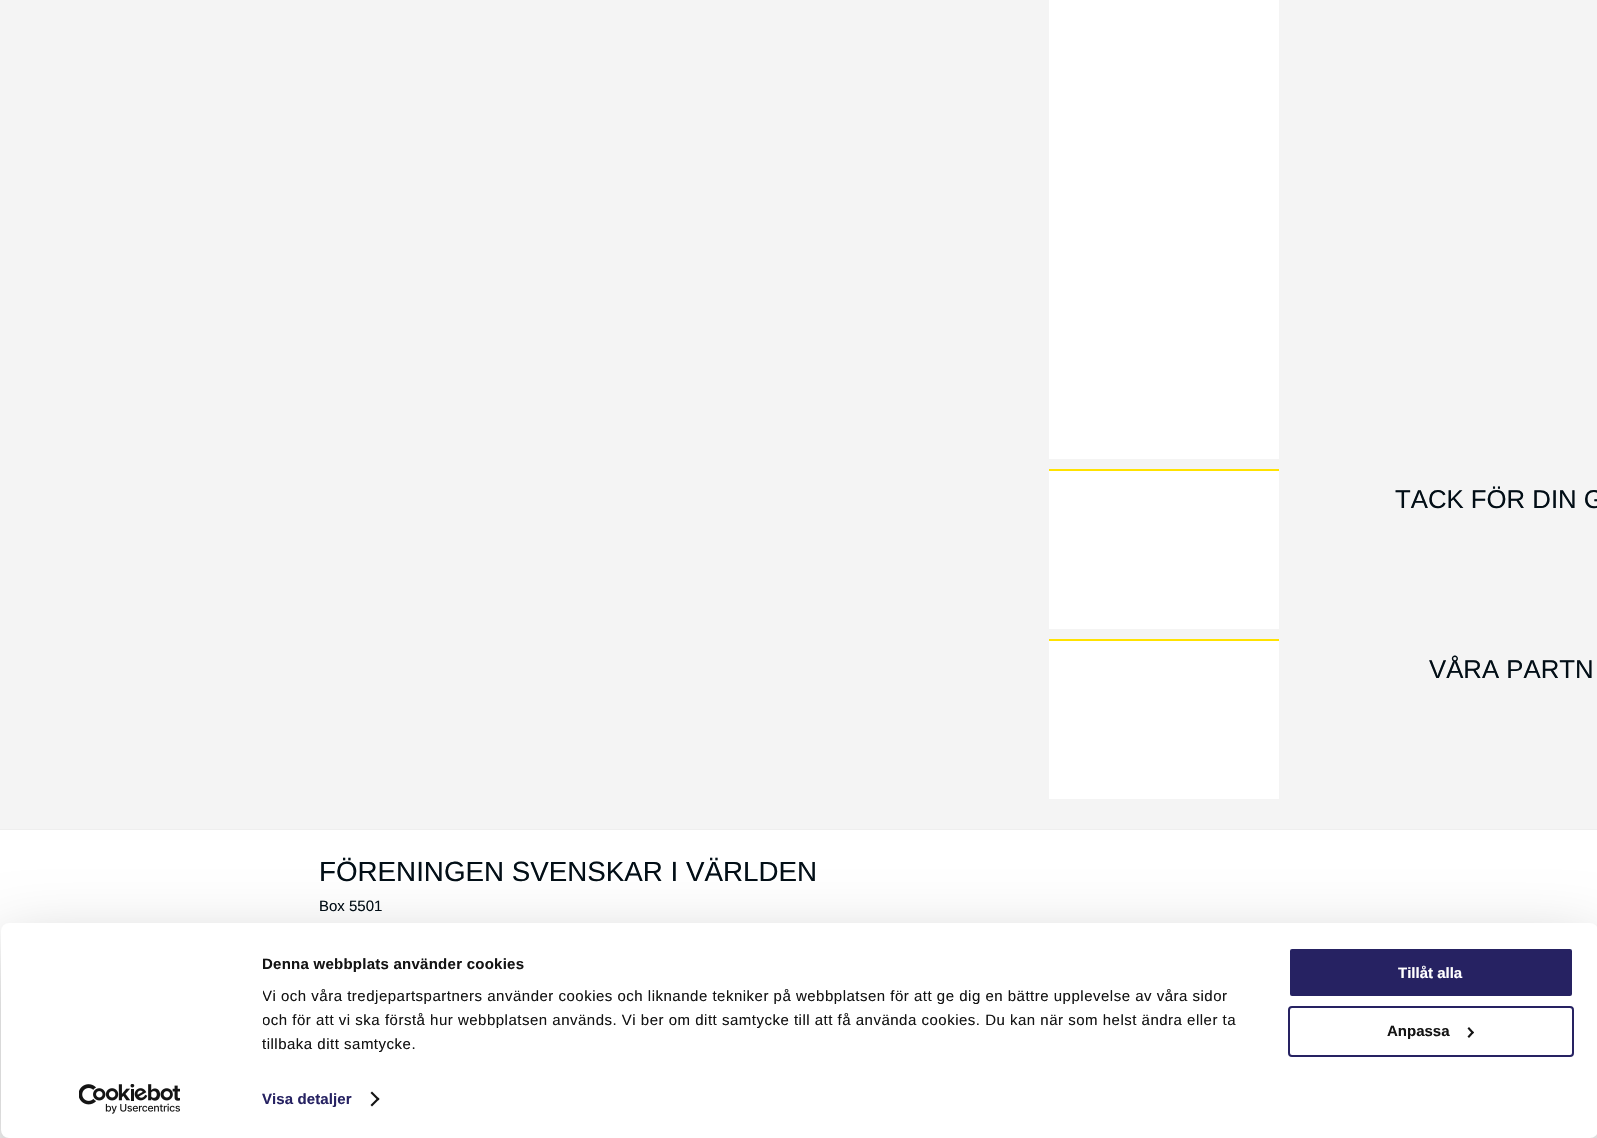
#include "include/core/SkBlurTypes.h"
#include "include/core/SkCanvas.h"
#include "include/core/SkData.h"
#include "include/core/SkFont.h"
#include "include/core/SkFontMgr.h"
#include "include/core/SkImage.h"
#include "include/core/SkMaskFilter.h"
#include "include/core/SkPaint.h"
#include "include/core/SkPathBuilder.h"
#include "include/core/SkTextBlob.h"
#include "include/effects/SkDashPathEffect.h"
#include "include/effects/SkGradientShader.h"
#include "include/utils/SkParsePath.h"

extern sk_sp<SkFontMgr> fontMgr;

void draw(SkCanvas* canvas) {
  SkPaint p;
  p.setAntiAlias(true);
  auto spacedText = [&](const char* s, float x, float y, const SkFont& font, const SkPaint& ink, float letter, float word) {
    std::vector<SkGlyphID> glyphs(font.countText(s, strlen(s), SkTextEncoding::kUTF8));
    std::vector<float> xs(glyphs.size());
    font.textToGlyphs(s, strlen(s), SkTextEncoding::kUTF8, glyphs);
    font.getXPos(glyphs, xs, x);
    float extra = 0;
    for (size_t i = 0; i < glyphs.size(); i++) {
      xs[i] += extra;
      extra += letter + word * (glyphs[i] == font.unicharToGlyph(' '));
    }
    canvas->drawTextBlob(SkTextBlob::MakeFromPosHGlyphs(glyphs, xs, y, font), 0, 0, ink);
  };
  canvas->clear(SkColorSetRGB(244, 244, 244));
  p.setColor(SK_ColorWHITE);
  canvas->drawRect(SkRect::MakeLTRB(1049, 0, 1279, 459), p);
  canvas->drawRect(SkRect::MakeLTRB(1049, 471, 1279, 629), p);
  p.setColor(SkColorSetRGB(255, 226, 0));
  canvas->drawRect(SkRect::MakeLTRB(1049, 469, 1279, 471), p);
  p.setColor(SK_ColorWHITE);
  canvas->drawRect(SkRect::MakeLTRB(1049, 641, 1279, 799), p);
  p.setColor(SkColorSetRGB(255, 226, 0));
  canvas->drawRect(SkRect::MakeLTRB(1049, 639, 1279, 641), p);
  p.setColor(SK_ColorWHITE);
  canvas->drawRect(SkRect::MakeLTRB(0, 830, 1597, 1138), p);
  p.setColor(SkColorSetRGB(238, 238, 238));
  canvas->drawRect(SkRect::MakeLTRB(0, 829, 1597, 830), p);
  p.setColor(SkColorSetARGB(77, 0, 0, 0));
  p.setMaskFilter(SkMaskFilter::MakeBlur(kNormal_SkBlurStyle, 35));
  canvas->drawRoundRect(SkRect::MakeLTRB(1, 953, 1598, 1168), 8, 8, p);
  p.setMaskFilter(nullptr);
  p.setColor(SK_ColorWHITE);
  canvas->drawRoundRect(SkRect::MakeLTRB(1, 923, 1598, 1138), 8, 8, p);
  p.setColor(SkColorSetRGB(20, 20, 20));
  canvas->drawPath(SkPathBuilder().moveTo(372, 1091.5f).lineTo(379.5f, 1099).lineTo(378, 1100.5f).lineTo(370.5f, 1093).close().detach(), p);
  canvas->drawPath(SkPathBuilder().moveTo(378, 1097.5f).lineTo(379.5f, 1099).lineTo(372, 1106.5f).lineTo(370.5f, 1105).close().detach(), p);
  p.setColor(SkColorSetRGB(38, 34, 98));
  canvas->drawRoundRect(SkRect::MakeLTRB(1289, 948, 1573, 997), 3, 3, p);
  p.setStyle(SkPaint::kStroke_Style);
  p.setStrokeWidth(2);
  p.setColor(SK_ColorWHITE);
  canvas->drawRoundRect(SkRect::MakeLTRB(1289, 948, 1573, 997), 3, 3, p);
  p.setColor(SkColorSetRGB(38, 34, 98));
  canvas->drawRoundRect(SkRect::MakeLTRB(1289, 1007, 1573, 1056), 3, 3, p);
  p.setStyle(SkPaint::kFill_Style);
  p.setColor(SkColorSetRGB(20, 20, 20));
  canvas->drawPath(SkPathBuilder().moveTo(1469, 1027).lineTo(1474, 1032.5f).lineTo(1472.5f, 1034).lineTo(1467.5f, 1028.5f).close().detach(), p);
  canvas->drawPath(SkPathBuilder().moveTo(1472.5f, 1031).lineTo(1474, 1032.5f).lineTo(1469, 1038).lineTo(1467.5f, 1036.5f).close().detach(), p);
  canvas->drawImageRect(SkImages::DeferredFromEncodedData(SkData::MakeFromFileName("images/1.png")), SkRect::MakeLTRB(79, 1084, 180, 1114), SkSamplingOptions());
  SkFont font1(fontMgr->matchFamilyStyle("Liberation Sans", SkFontStyle::Normal()), 25.75f);
  font1.setSubpixel(true);
  p.setColor(SkColorSetRGB(2, 14, 22));
  canvas->drawString("TACK FÖR DIN G", 1395, 508, font1, p);
  canvas->drawString("VÅRA PARTN", 1429, 678, font1, p);
  SkFont font2(fontMgr->matchFamilyStyle("Liberation Sans", SkFontStyle::Normal()), 27.75f);
  font2.setSubpixel(true);
  canvas->drawString("FÖRENINGEN SVENSKAR I VÄRLDEN", 319, 881, font2, p);
  SkFont font3(fontMgr->matchFamilyStyle("Liberation Sans", SkFontStyle::Normal()), 15);
  font3.setSubpixel(true);
  canvas->drawString("Box 5501", 319, 911, font3, p);
  SkFont font4(fontMgr->matchFamilyStyle("Liberation Sans", SkFontStyle::Bold()), 15);
  font4.setSubpixel(true);
  p.setColor(SkColorSetRGB(20, 20, 20));
  spacedText("Denna webbplats använder cookies", 262, 969, font4, p, 0.25f, 0);
  canvas->save();
  canvas->clipRect(SkRect::MakeLTRB(263, 953, 1259, 1056));
  spacedText("Vi och våra tredjepartspartners använder cookies och liknande tekniker på webbplatsen för att ge dig en bättre upplevelse av våra sidor", 262, 1001, font3, p, 0.5f, 0);
  spacedText("och för att vi ska förstå hur webbplatsen används. Vi ber om ditt samtycke till att få använda cookies. Du kan när som helst ändra eller ta", 262, 1025, font3, p, 0.5f, 0);
  canvas->restore();
  spacedText("tillbaka ditt samtycke.", 262, 1049, font3, p, 0.5f, 0);
  p.setColor(SkColorSetRGB(38, 34, 98));
  spacedText("Visa detaljer", 262, 1104, font4, p, 0.1f, 0);
  p.setColor(SK_ColorWHITE);
  canvas->drawString("Tillåt alla", 1398, 978, font4, p);
  p.setColor(SkColorSetRGB(20, 20, 20));
  canvas->drawString("Anpassa", 1387, 1036, font4, p);
}
